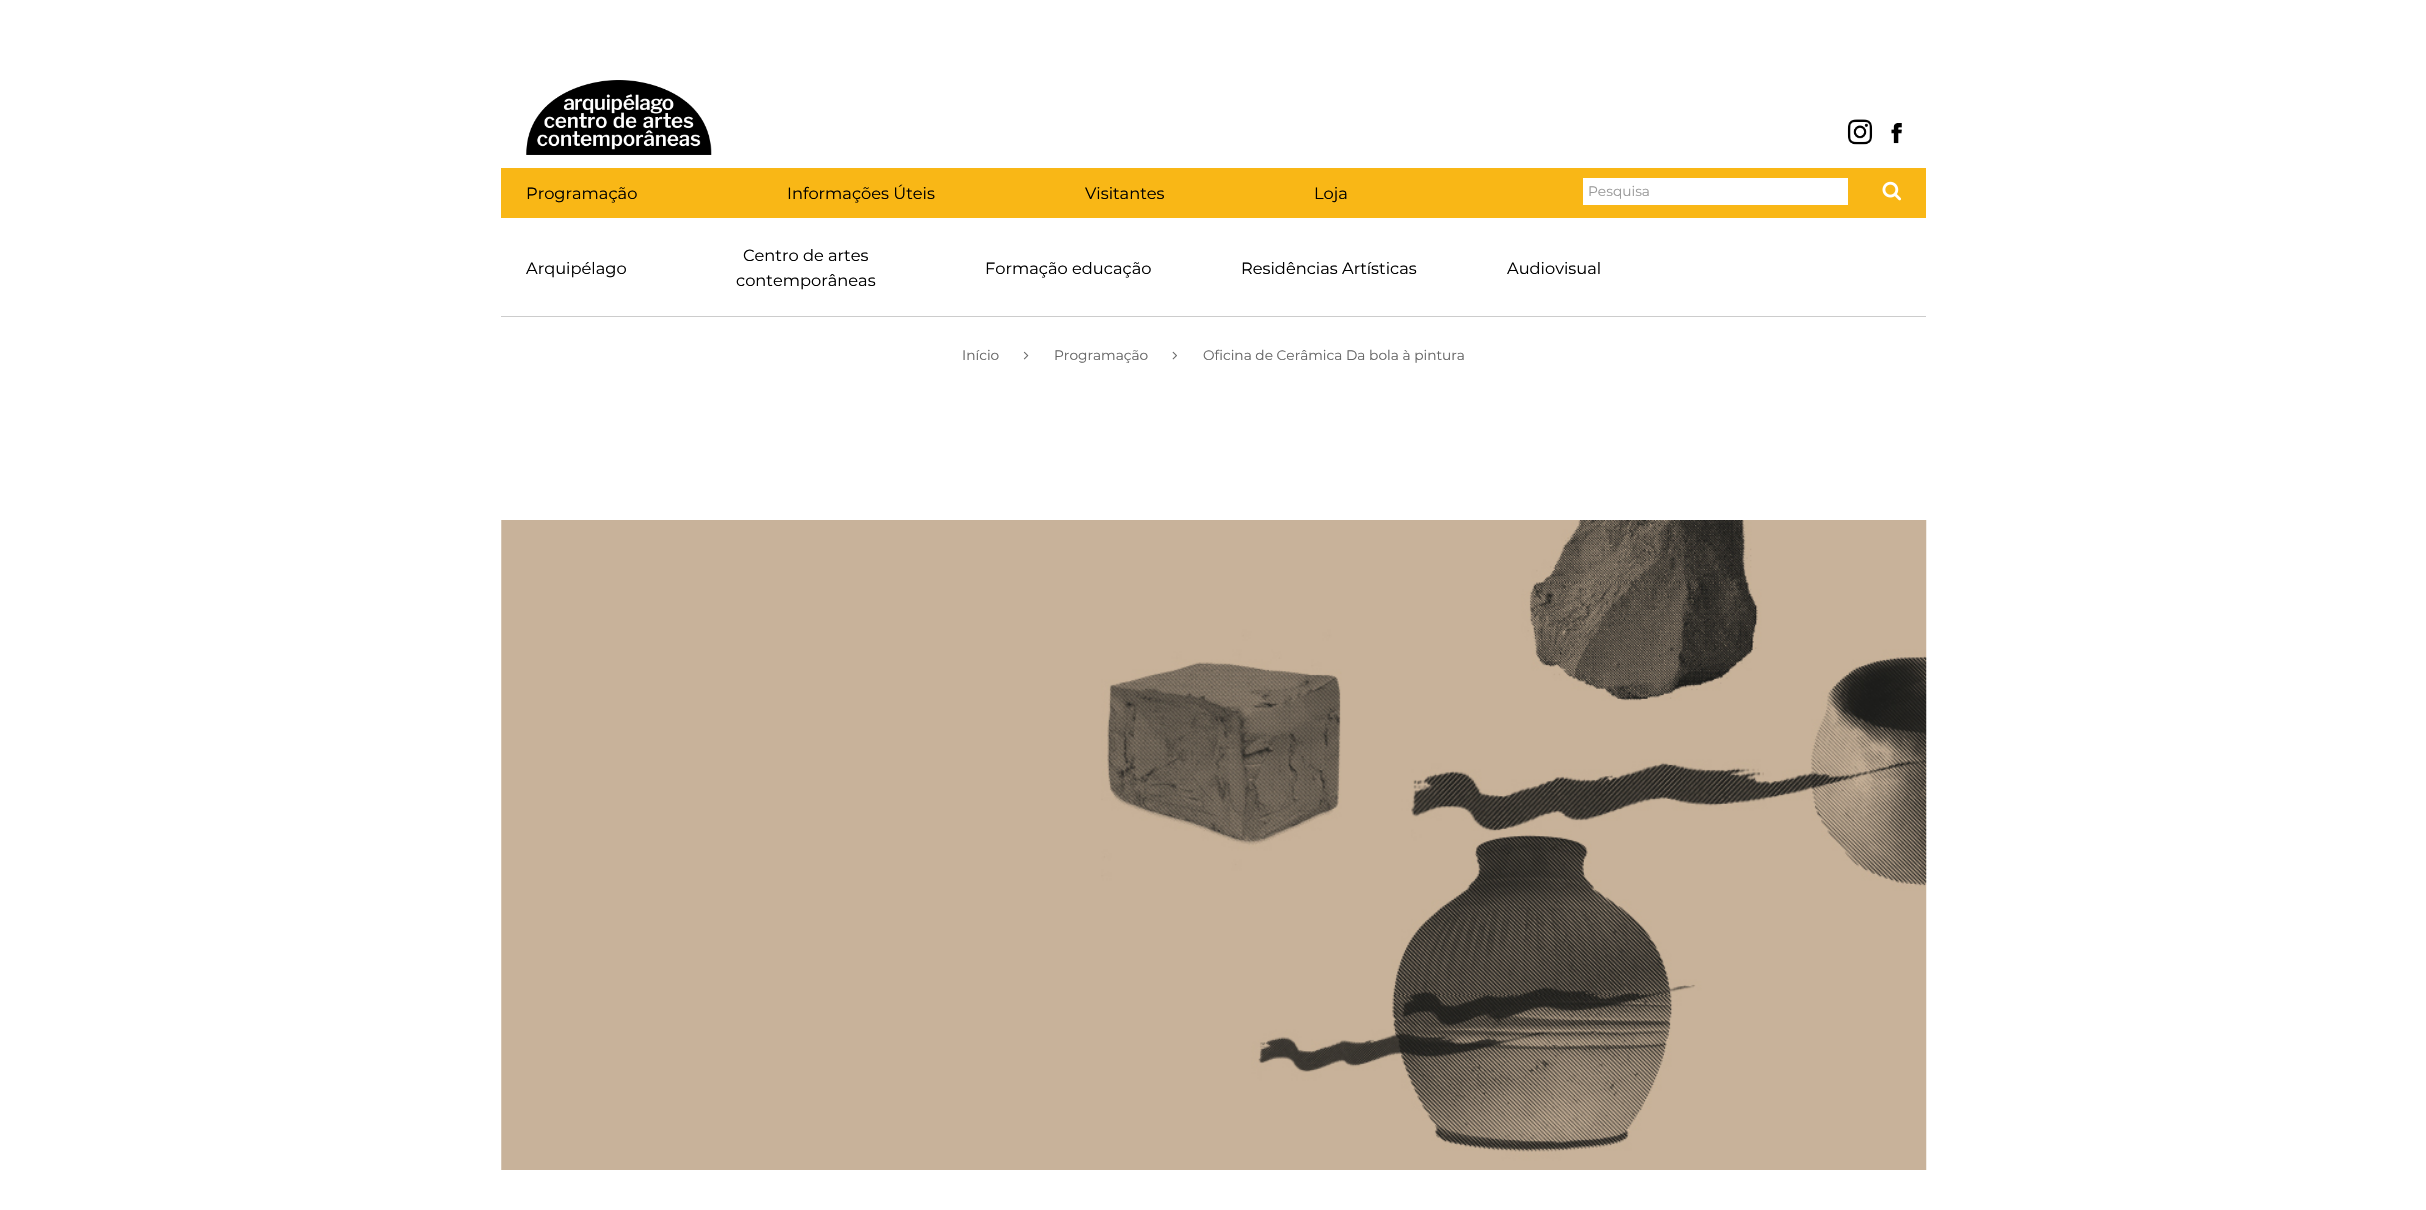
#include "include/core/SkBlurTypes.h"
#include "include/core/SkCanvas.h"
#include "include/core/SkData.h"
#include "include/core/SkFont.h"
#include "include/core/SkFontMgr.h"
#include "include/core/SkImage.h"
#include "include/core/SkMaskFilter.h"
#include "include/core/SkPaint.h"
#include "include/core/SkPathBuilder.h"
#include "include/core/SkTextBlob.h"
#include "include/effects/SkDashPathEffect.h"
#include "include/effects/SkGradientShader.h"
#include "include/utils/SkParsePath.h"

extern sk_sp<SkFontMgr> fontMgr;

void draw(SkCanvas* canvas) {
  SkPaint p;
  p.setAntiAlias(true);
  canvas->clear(SK_ColorWHITE);
  canvas->drawImageRect(SkImages::DeferredFromEncodedData(SkData::MakeFromFileName("images/1.png")), SkRect::MakeLTRB(526, 80, 712, 155), SkSamplingOptions());
  canvas->drawImageRect(SkImages::DeferredFromEncodedData(SkData::MakeFromFileName("images/2.png")), SkRect::MakeLTRB(1847, 119, 1873, 145), SkSamplingOptions());
  canvas->drawImageRect(SkImages::DeferredFromEncodedData(SkData::MakeFromFileName("images/3.png")), SkRect::MakeLTRB(1891, 123, 1902, 144), SkSamplingOptions());
  p.setColor(SkColorSetRGB(249, 183, 22));
  canvas->drawRect(SkRect::MakeLTRB(501, 168, 1926, 218), p);
  p.setColor(SK_ColorWHITE);
  canvas->drawRect(SkRect::MakeLTRB(1583, 178, 1848, 205), p);
  canvas->drawImageRect(SkImages::DeferredFromEncodedData(SkData::MakeFromFileName("images/4.png")), SkRect::MakeLTRB(1882, 181, 1901, 201), SkSamplingOptions());
  p.setColor(SkColorSetRGB(204, 204, 204));
  canvas->drawRect(SkRect::MakeLTRB(501, 316, 1926, 317), p);
  canvas->drawImageRect(SkImages::DeferredFromEncodedData(SkData::MakeFromFileName("images/5.png")), SkRect::MakeLTRB(1023, 351, 1029, 360), SkSamplingOptions());
  canvas->drawImageRect(SkImages::DeferredFromEncodedData(SkData::MakeFromFileName("images/6.png")), SkRect::MakeLTRB(1172, 351, 1177, 360), SkSamplingOptions());
  canvas->drawImageRect(SkImages::DeferredFromEncodedData(SkData::MakeFromFileName("images/7.png")), SkRect::MakeLTRB(501, 520, 1927, 1170), SkSamplingOptions());
  SkFont font1(fontMgr->matchFamilyStyle("Montserrat", SkFontStyle::Normal()), 16.25f);
  font1.setSubpixel(true);
  p.setColor(SK_ColorBLACK);
  canvas->drawString("Programação", 526, 199, font1, p);
  canvas->drawString("Informações Úteis", 787, 199, font1, p);
  canvas->drawString("Visitantes", 1085, 199, font1, p);
  canvas->drawString("Loja", 1314, 199, font1, p);
  SkFont font2(fontMgr->matchFamilyStyle("Montserrat", SkFontStyle::Normal()), 13.75f);
  font2.setSubpixel(true);
  p.setColor(SkColorSetRGB(153, 153, 153));
  canvas->drawString("Pesquisa", 1588, 196, font2, p);
  p.setColor(SK_ColorBLACK);
  canvas->drawString("Arquipélago", 526, 274, font1, p);
  canvas->drawString("Centro de artes", 743, 261, font1, p);
  canvas->drawString("contemporâneas", 736, 286, font1, p);
  canvas->drawString("Formação educação", 985, 274, font1, p);
  canvas->drawString("Residências Artísticas", 1241, 274, font1, p);
  canvas->drawString("Audiovisual", 1507, 274, font1, p);
  p.setColor(SkColorSetRGB(102, 102, 102));
  canvas->drawString("Início", 962, 360, font2, p);
  canvas->drawString("Programação", 1054, 360, font2, p);
  canvas->drawString("Oficina de Cerâmica Da bola à pintura", 1203, 360, font2, p);
}
